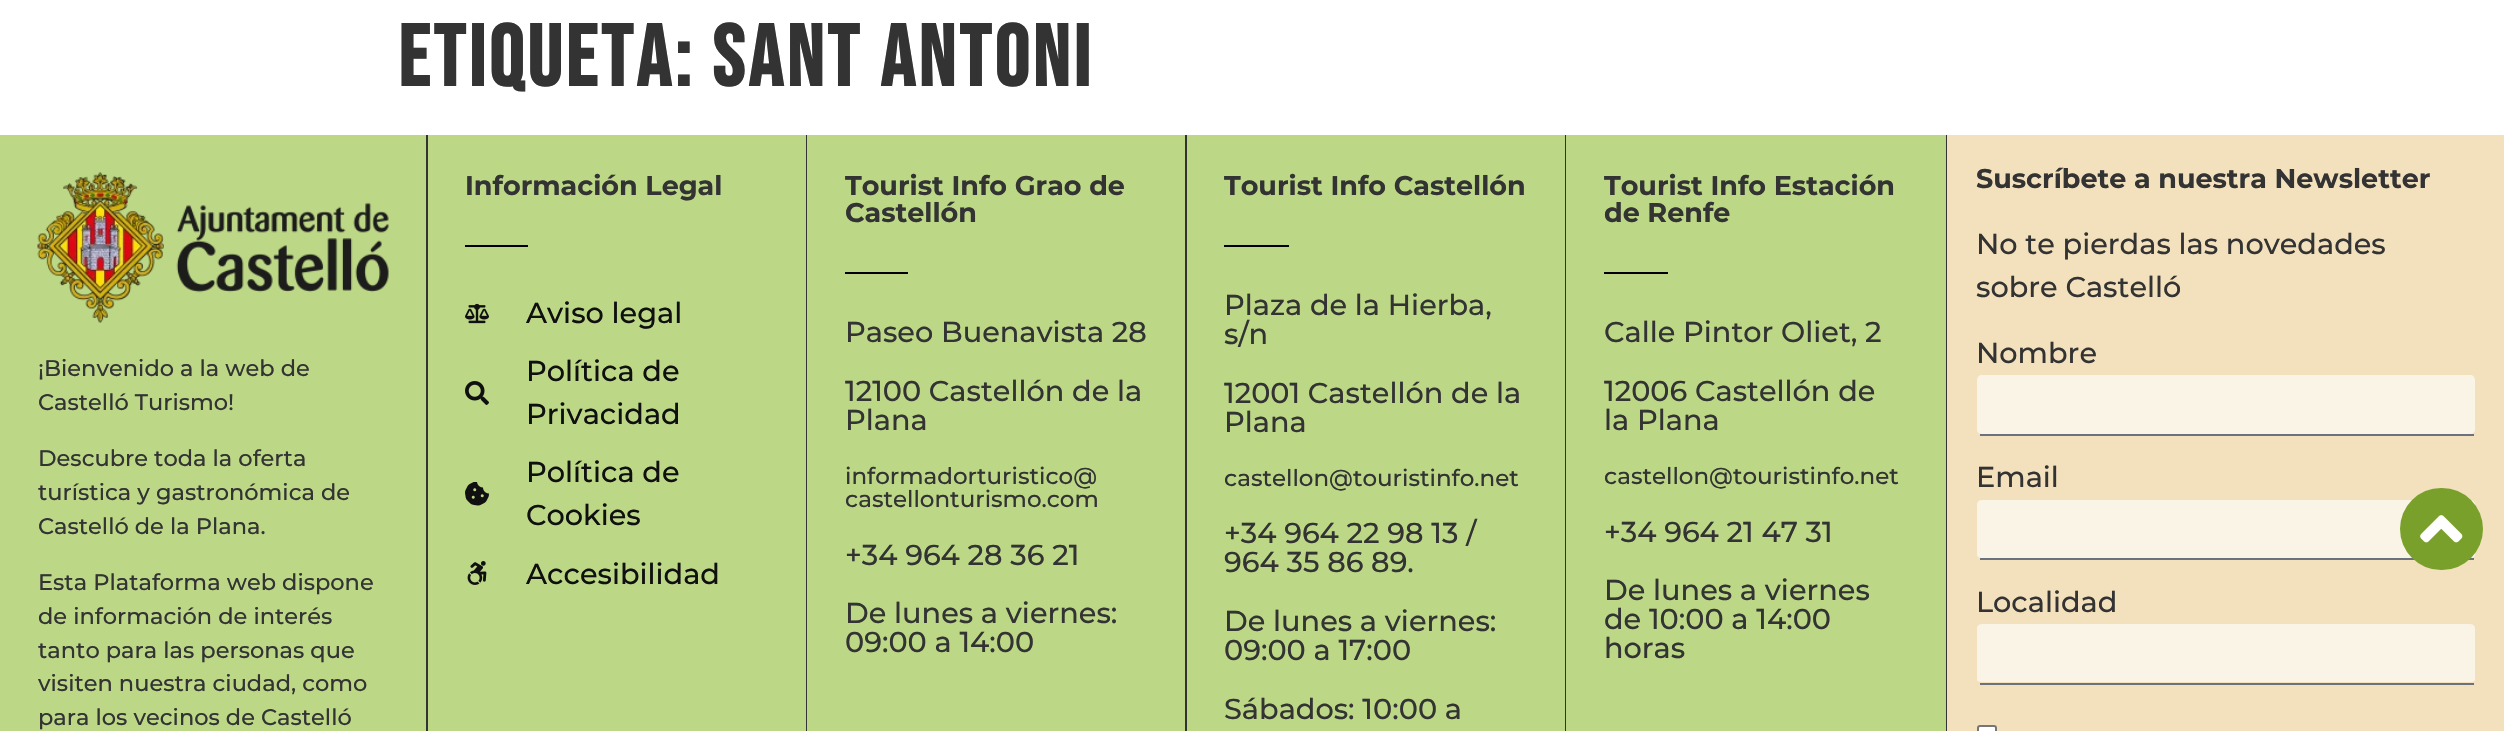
#include "include/core/SkBlurTypes.h"
#include "include/core/SkCanvas.h"
#include "include/core/SkData.h"
#include "include/core/SkFont.h"
#include "include/core/SkFontMgr.h"
#include "include/core/SkImage.h"
#include "include/core/SkMaskFilter.h"
#include "include/core/SkPaint.h"
#include "include/core/SkPathBuilder.h"
#include "include/core/SkTextBlob.h"
#include "include/effects/SkDashPathEffect.h"
#include "include/effects/SkGradientShader.h"
#include "include/utils/SkParsePath.h"

extern sk_sp<SkFontMgr> fontMgr;

void draw(SkCanvas* canvas) {
  SkPaint p;
  p.setAntiAlias(true);
  auto spacedText = [&](const char* s, float x, float y, const SkFont& font, const SkPaint& ink, float letter, float word) {
    std::vector<SkGlyphID> glyphs(font.countText(s, strlen(s), SkTextEncoding::kUTF8));
    std::vector<float> xs(glyphs.size());
    font.textToGlyphs(s, strlen(s), SkTextEncoding::kUTF8, glyphs);
    font.getXPos(glyphs, xs, x);
    float extra = 0;
    for (size_t i = 0; i < glyphs.size(); i++) {
      xs[i] += extra;
      extra += letter + word * (glyphs[i] == font.unicharToGlyph(' '));
    }
    canvas->drawTextBlob(SkTextBlob::MakeFromPosHGlyphs(glyphs, xs, y, font), 0, 0, ink);
  };
  canvas->clear(SK_ColorWHITE);
  p.setColor(SkColorSetRGB(188, 215, 134));
  canvas->drawRect(SkRect::MakeLTRB(0, 135, 426, 731), p);
  p.setColor(SkColorSetRGB(51, 51, 51));
  canvas->drawRect(SkRect::MakeLTRB(426, 135, 428, 731), p);
  canvas->drawImageRect(SkImages::DeferredFromEncodedData(SkData::MakeFromFileName("images/1.png")), SkRect::MakeLTRB(37, 172, 389, 323), SkSamplingOptions());
  p.setColor(SkColorSetRGB(188, 215, 134));
  canvas->drawRect(SkRect::MakeLTRB(428, 135, 806, 731), p);
  p.setColor(SkColorSetRGB(51, 51, 51));
  canvas->drawRect(SkRect::MakeLTRB(806, 135, 807, 731), p);
  p.setColor(SK_ColorBLACK);
  canvas->drawRect(SkRect::MakeLTRB(465, 245, 528, 247), p);
  canvas->drawImageRect(SkImages::DeferredFromEncodedData(SkData::MakeFromFileName("images/2.png")), SkRect::MakeLTRB(465, 303, 489, 324), SkSamplingOptions());
  canvas->drawImageRect(SkImages::DeferredFromEncodedData(SkData::MakeFromFileName("images/3.png")), SkRect::MakeLTRB(465, 381, 489, 405), SkSamplingOptions());
  canvas->drawImageRect(SkImages::DeferredFromEncodedData(SkData::MakeFromFileName("images/4.png")), SkRect::MakeLTRB(465, 482, 489, 506), SkSamplingOptions());
  canvas->drawImageRect(SkImages::DeferredFromEncodedData(SkData::MakeFromFileName("images/5.png")), SkRect::MakeLTRB(467, 561, 487, 585), SkSamplingOptions());
  p.setColor(SkColorSetRGB(188, 215, 134));
  canvas->drawRect(SkRect::MakeLTRB(807, 135, 1185, 731), p);
  p.setColor(SkColorSetRGB(51, 51, 51));
  canvas->drawRect(SkRect::MakeLTRB(1185, 135, 1187, 731), p);
  p.setColor(SK_ColorBLACK);
  canvas->drawRect(SkRect::MakeLTRB(845, 272, 908, 274), p);
  p.setColor(SkColorSetRGB(188, 215, 134));
  canvas->drawRect(SkRect::MakeLTRB(1187, 135, 1565, 731), p);
  p.setColor(SkColorSetRGB(51, 51, 51));
  canvas->drawRect(SkRect::MakeLTRB(1565, 135, 1566, 731), p);
  p.setColor(SK_ColorBLACK);
  canvas->drawRect(SkRect::MakeLTRB(1224, 245, 1289, 247), p);
  p.setColor(SkColorSetRGB(188, 215, 134));
  canvas->drawRect(SkRect::MakeLTRB(1566, 135, 1946, 731), p);
  p.setColor(SkColorSetRGB(51, 51, 51));
  canvas->drawRect(SkRect::MakeLTRB(1946, 135, 1947, 731), p);
  p.setColor(SK_ColorBLACK);
  canvas->drawRect(SkRect::MakeLTRB(1604, 272, 1668, 274), p);
  p.setColor(SkColorSetRGB(243, 225, 189));
  canvas->drawRect(SkRect::MakeLTRB(1947, 135, 2504, 731), p);
  p.setColor(SkColorSetRGB(250, 244, 230));
  canvas->drawPath(SkPathBuilder().moveTo(1982, 375).lineTo(2470, 375).cubicTo(2473, 375, 2475, 377, 2475, 380).lineTo(2475, 430).cubicTo(2475, 432, 2473, 434, 2470, 434).lineTo(1982, 434).cubicTo(1979, 434, 1977, 432, 1977, 430).lineTo(1977, 380).cubicTo(1977, 377, 1979, 375, 1982, 375).close().detach(), p);
  p.setColor(SkColorSetRGB(105, 114, 125));
  canvas->drawRect(SkRect::MakeLTRB(1980, 434, 2474, 436), p);
  p.setColor(SkColorSetRGB(250, 244, 230));
  canvas->drawPath(SkPathBuilder().moveTo(1982, 500).lineTo(2470, 500).cubicTo(2473, 500, 2475, 502, 2475, 504).lineTo(2475, 555).cubicTo(2475, 557, 2473, 558, 2470, 558).lineTo(1982, 558).cubicTo(1979, 558, 1977, 557, 1977, 555).lineTo(1977, 504).cubicTo(1977, 502, 1979, 500, 1982, 500).close().detach(), p);
  p.setColor(SkColorSetRGB(105, 114, 125));
  canvas->drawRect(SkRect::MakeLTRB(1980, 558, 2474, 560), p);
  p.setColor(SkColorSetRGB(250, 244, 230));
  canvas->drawPath(SkPathBuilder().moveTo(1982, 624).lineTo(2470, 624).cubicTo(2473, 624, 2475, 626, 2475, 628).lineTo(2475, 680).cubicTo(2475, 681, 2473, 682, 2470, 682).lineTo(1982, 682).cubicTo(1979, 682, 1977, 681, 1977, 680).lineTo(1977, 628).cubicTo(1977, 626, 1979, 624, 1982, 624).close().detach(), p);
  p.setColor(SkColorSetRGB(105, 114, 125));
  canvas->drawRect(SkRect::MakeLTRB(1980, 683, 2474, 685), p);
  p.setColor(SK_ColorWHITE);
  canvas->drawRoundRect(SkRect::MakeLTRB(1978, 726, 1996, 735), 2, 2, p);
  p.setStyle(SkPaint::kStroke_Style);
  p.setStrokeWidth(2);
  p.setColor(SkColorSetRGB(118, 118, 118));
  canvas->drawRoundRect(SkRect::MakeLTRB(1978, 726, 1996, 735), 2, 2, p);
  p.setStyle(SkPaint::kFill_Style);
  p.setColor(SkColorSetRGB(121, 160, 43));
  canvas->drawRoundRect(SkRect::MakeLTRB(2400, 488, 2483, 570), 41, 41, p);
  canvas->drawImageRect(SkImages::DeferredFromEncodedData(SkData::MakeFromFileName("images/6.png")), SkRect::MakeLTRB(2420, 515, 2463, 543), SkSamplingOptions());
  SkFont font1(fontMgr->matchFamilyStyle("Bebas Neue", SkFontStyle::Bold()), 86.5f);
  font1.setSubpixel(true);
  p.setColor(SkColorSetRGB(51, 51, 51));
  spacedText("ETIQUETA: SANT ANTONI", 398, 86, font1, p, 3.75f, 0);
  SkFont font2(fontMgr->matchFamilyStyle("Montserrat", SkFontStyle(500, SkFontStyle::kNormal_Width, SkFontStyle::kUpright_Slant)), 22.5f);
  font2.setSubpixel(true);
  canvas->drawString("¡Bienvenido a la web de", 38, 376, font2, p);
  canvas->drawString("Castelló Turismo!", 38, 410, font2, p);
  canvas->drawString("Descubre toda la oferta", 38, 466, font2, p);
  canvas->drawString("turística y gastronómica de", 38, 500, font2, p);
  canvas->drawString("Castelló de la Plana.", 38, 534, font2, p);
  canvas->drawString("Esta Plataforma web dispone", 38, 590, font2, p);
  canvas->drawString("de información de interés", 38, 624, font2, p);
  canvas->drawString("tanto para las personas que", 38, 658, font2, p);
  canvas->drawString("visiten nuestra ciudad, como", 38, 691, font2, p);
  canvas->drawString("para los vecinos de Castelló", 38, 725, font2, p);
  SkFont font3(fontMgr->matchFamilyStyle("Montserrat", SkFontStyle::Bold()), 27);
  font3.setSubpixel(true);
  canvas->drawString("Información Legal", 465, 195, font3, p);
  SkFont font4(fontMgr->matchFamilyStyle("Montserrat", SkFontStyle(500, SkFontStyle::kNormal_Width, SkFontStyle::kUpright_Slant)), 28.75f);
  font4.setSubpixel(true);
  p.setColor(SkColorSetRGB(16, 16, 16));
  canvas->drawString("Aviso legal", 526, 323, font4, p);
  canvas->drawString("Política de", 526, 381, font4, p);
  canvas->drawString("Privacidad", 526, 424, font4, p);
  canvas->drawString("Política de", 526, 482, font4, p);
  canvas->drawString("Cookies", 526, 525, font4, p);
  canvas->drawString("Accesibilidad", 526, 584, font4, p);
  p.setColor(SkColorSetRGB(51, 51, 51));
  canvas->drawString("Tourist Info Grao de", 845, 195, font3, p);
  canvas->drawString("Castellón", 845, 222, font3, p);
  canvas->drawString("Paseo Buenavista 28", 845, 342, font4, p);
  canvas->drawString("12100 Castellón de la", 845, 401, font4, p);
  canvas->drawString("Plana", 845, 430, font4, p);
  SkFont font5(fontMgr->matchFamilyStyle("Montserrat", SkFontStyle(500, SkFontStyle::kNormal_Width, SkFontStyle::kUpright_Slant)), 23);
  font5.setSubpixel(true);
  canvas->drawString("informadorturistico@", 845, 484, font5, p);
  canvas->drawString("castellonturismo.com", 845, 507, font5, p);
  canvas->drawString("+34 964 28 36 21", 845, 565, font4, p);
  canvas->drawString("De lunes a viernes:", 845, 623, font4, p);
  canvas->drawString("09:00 a 14:00", 845, 652, font4, p);
  canvas->drawString("Tourist Info Castellón", 1224, 195, font3, p);
  canvas->drawString("Plaza de la Hierba,", 1224, 315, font4, p);
  canvas->drawString("s/n", 1224, 344, font4, p);
  canvas->drawString("12001 Castellón de la", 1224, 403, font4, p);
  canvas->drawString("Plana", 1224, 432, font4, p);
  canvas->drawString("castellon@touristinfo.net", 1224, 486, font5, p);
  canvas->drawString("+34 964 22 98 13 /", 1224, 543, font4, p);
  canvas->drawString("964 35 86 89.", 1224, 572, font4, p);
  canvas->drawString("De lunes a viernes:", 1224, 631, font4, p);
  canvas->drawString("09:00 a 17:00", 1224, 660, font4, p);
  canvas->drawString("Sábados: 10:00 a", 1224, 719, font4, p);
  canvas->drawString("Tourist Info Estación", 1604, 195, font3, p);
  canvas->drawString("de Renfe", 1604, 222, font3, p);
  canvas->drawString("Calle Pintor Oliet, 2", 1604, 342, font4, p);
  canvas->drawString("12006 Castellón de", 1604, 401, font4, p);
  canvas->drawString("la Plana", 1604, 430, font4, p);
  canvas->drawString("castellon@touristinfo.net", 1604, 484, font5, p);
  canvas->drawString("+34 964 21 47 31", 1604, 542, font4, p);
  canvas->drawString("De lunes a viernes", 1604, 600, font4, p);
  canvas->drawString("de 10:00 a 14:00", 1604, 629, font4, p);
  canvas->drawString("horas", 1604, 658, font4, p);
  canvas->drawString("Suscríbete a nuestra Newsletter", 1976, 188, font3, p);
  canvas->drawString("No te pierdas las novedades", 1976, 254, font4, p);
  canvas->drawString("sobre Castelló", 1976, 297, font4, p);
  canvas->drawString("Nombre", 1976, 363, font4, p);
  canvas->drawString("Email", 1976, 487, font4, p);
  canvas->drawString("Localidad", 1976, 612, font4, p);
}
